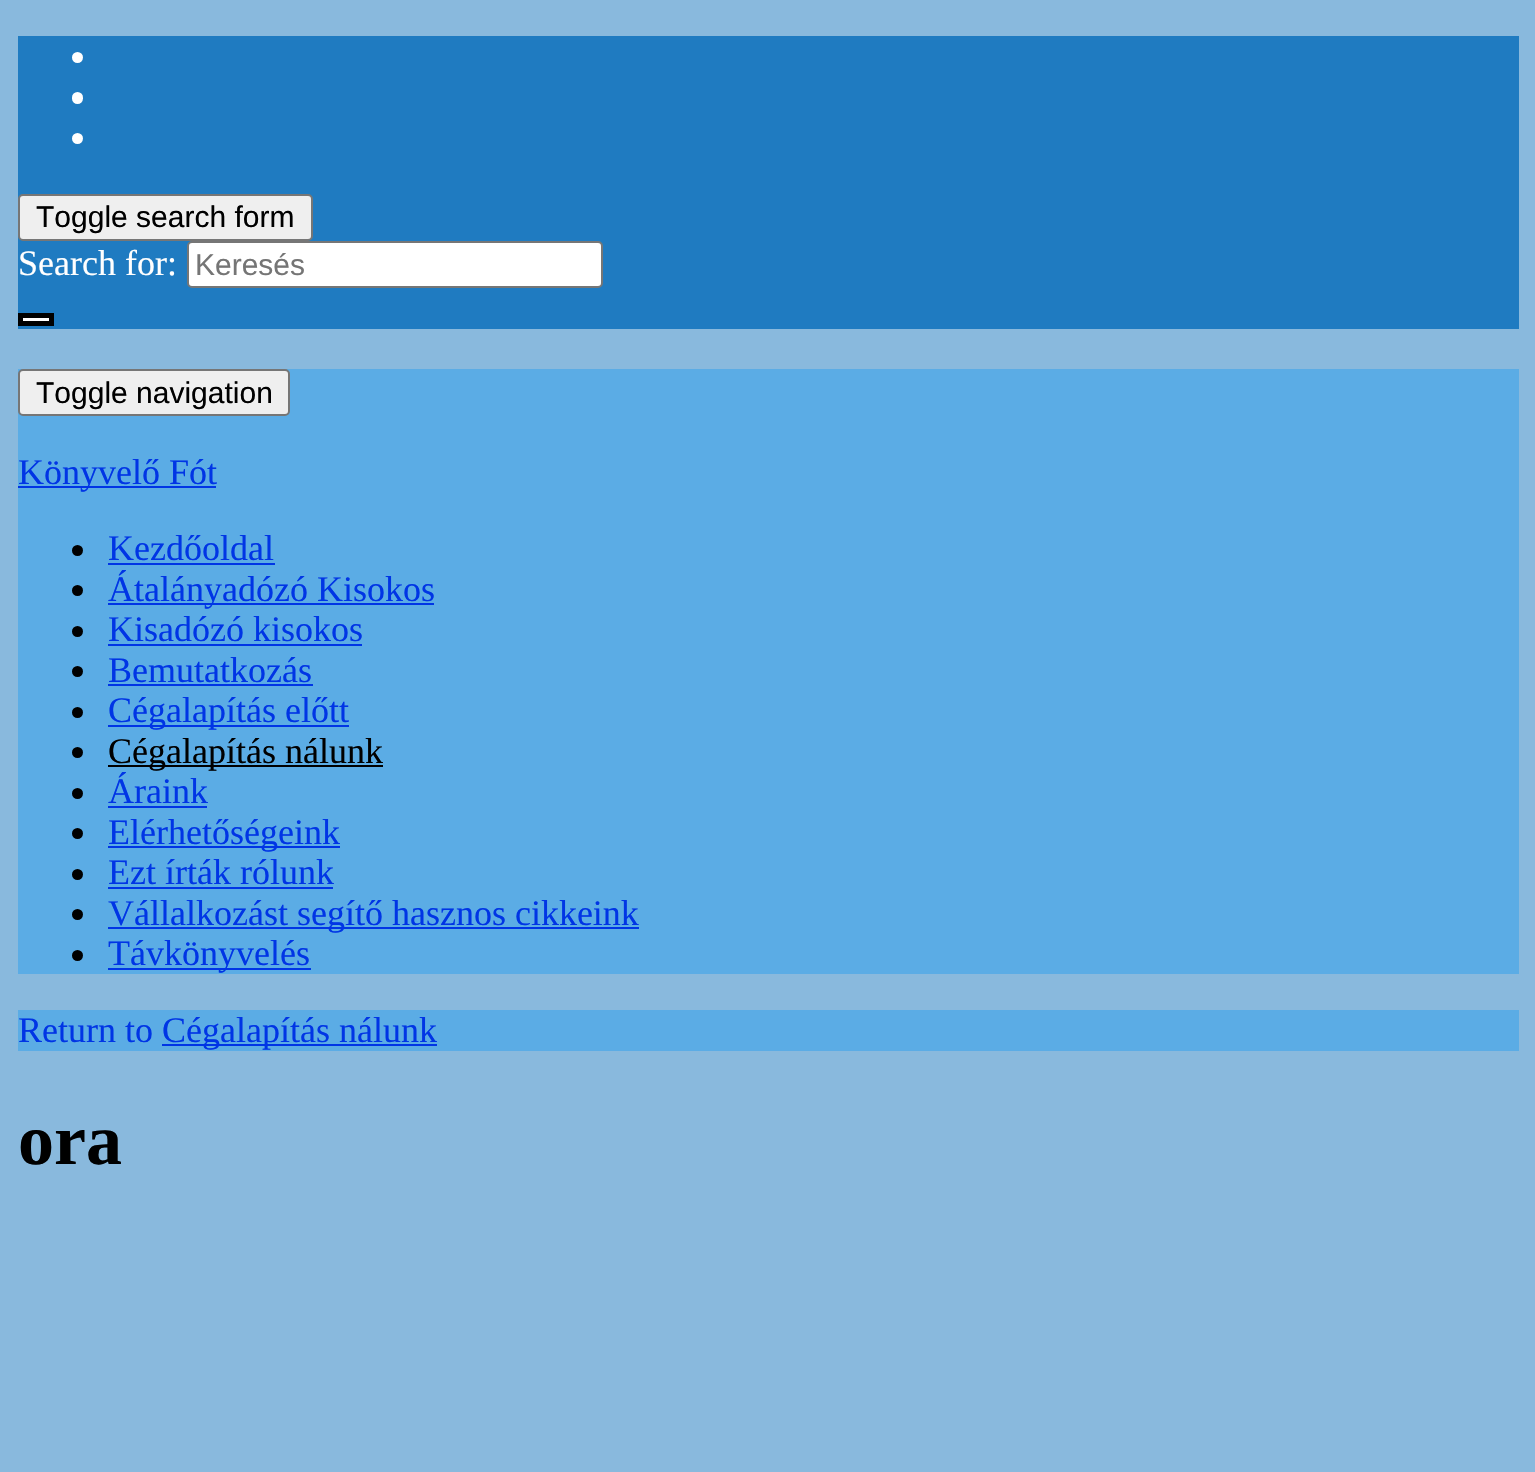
#include "include/core/SkBlurTypes.h"
#include "include/core/SkCanvas.h"
#include "include/core/SkData.h"
#include "include/core/SkFont.h"
#include "include/core/SkFontMgr.h"
#include "include/core/SkImage.h"
#include "include/core/SkMaskFilter.h"
#include "include/core/SkPaint.h"
#include "include/core/SkPathBuilder.h"
#include "include/core/SkTextBlob.h"
#include "include/effects/SkDashPathEffect.h"
#include "include/effects/SkGradientShader.h"
#include "include/utils/SkParsePath.h"

extern sk_sp<SkFontMgr> fontMgr;

void draw(SkCanvas* canvas) {
  SkPaint p;
  p.setAntiAlias(true);
  canvas->clear(SkColorSetRGB(137, 185, 221));
  p.setColor(SkColorSetRGB(31, 123, 193));
  canvas->drawRect(SkRect::MakeLTRB(18, 36, 1519, 329), p);
  p.setColor(SK_ColorWHITE);
  canvas->drawCircle(77.5f, 57.5f, 5.5f, p);
  canvas->drawRoundRect(SkRect::MakeLTRB(72, 92, 83, 104), 5.5f, 5.5f, p);
  canvas->drawCircle(77.5f, 138.5f, 5.5f, p);
  p.setColor(SkColorSetRGB(239, 239, 239));
  canvas->drawRoundRect(SkRect::MakeLTRB(19, 195, 312, 240), 4, 4, p);
  p.setStyle(SkPaint::kStroke_Style);
  p.setStrokeWidth(2);
  p.setColor(SkColorSetRGB(118, 118, 118));
  canvas->drawRoundRect(SkRect::MakeLTRB(19, 195, 312, 240), 4, 4, p);
  p.setStyle(SkPaint::kFill_Style);
  p.setColor(SK_ColorWHITE);
  canvas->drawRoundRect(SkRect::MakeLTRB(188, 242, 602, 287), 4, 4, p);
  p.setStyle(SkPaint::kStroke_Style);
  p.setColor(SkColorSetRGB(118, 118, 118));
  canvas->drawRoundRect(SkRect::MakeLTRB(188, 242, 602, 287), 4, 4, p);
  p.setStyle(SkPaint::kFill_Style);
  p.setColor(SK_ColorWHITE);
  canvas->drawRect(SkRect::MakeLTRB(20.5f, 315.5f, 51.5f, 323.5f), p);
  p.setStyle(SkPaint::kStroke_Style);
  p.setStrokeWidth(5);
  p.setColor(SK_ColorBLACK);
  canvas->drawRect(SkRect::MakeLTRB(20.5f, 315.5f, 51.5f, 323.5f), p);
  p.setStyle(SkPaint::kFill_Style);
  p.setColor(SkColorSetRGB(91, 172, 229));
  canvas->drawRect(SkRect::MakeLTRB(18, 369, 1519, 974), p);
  p.setColor(SkColorSetRGB(239, 239, 239));
  canvas->drawRoundRect(SkRect::MakeLTRB(19, 370, 289, 415), 4, 4, p);
  p.setStyle(SkPaint::kStroke_Style);
  p.setStrokeWidth(2);
  p.setColor(SkColorSetRGB(118, 118, 118));
  canvas->drawRoundRect(SkRect::MakeLTRB(19, 370, 289, 415), 4, 4, p);
  p.setStyle(SkPaint::kFill_Style);
  p.setColor(SkColorSetRGB(0, 53, 229));
  canvas->drawRect(SkRect::MakeLTRB(18, 486, 216, 488), p);
  p.setColor(SK_ColorBLACK);
  canvas->drawCircle(77.5f, 550.5f, 5.5f, p);
  p.setColor(SkColorSetRGB(0, 53, 229));
  canvas->drawRect(SkRect::MakeLTRB(108, 563, 275, 565), p);
  p.setColor(SK_ColorBLACK);
  canvas->drawCircle(77.5f, 590.5f, 5.5f, p);
  p.setColor(SkColorSetRGB(0, 53, 229));
  canvas->drawRect(SkRect::MakeLTRB(108, 603, 434, 605), p);
  p.setColor(SK_ColorBLACK);
  canvas->drawCircle(77.5f, 631.5f, 5.5f, p);
  p.setColor(SkColorSetRGB(0, 53, 229));
  canvas->drawRect(SkRect::MakeLTRB(108, 644, 362, 646), p);
  p.setColor(SK_ColorBLACK);
  canvas->drawCircle(77.5f, 671.5f, 5.5f, p);
  p.setColor(SkColorSetRGB(0, 53, 229));
  canvas->drawRect(SkRect::MakeLTRB(108, 684, 313, 686), p);
  p.setColor(SK_ColorBLACK);
  canvas->drawCircle(77.5f, 712.5f, 5.5f, p);
  p.setColor(SkColorSetRGB(0, 53, 229));
  canvas->drawRect(SkRect::MakeLTRB(108, 725, 349, 727), p);
  p.setColor(SK_ColorBLACK);
  canvas->drawCircle(77.5f, 752.5f, 5.5f, p);
  canvas->drawRect(SkRect::MakeLTRB(108, 765, 383, 767), p);
  canvas->drawCircle(77.5f, 793.5f, 5.5f, p);
  p.setColor(SkColorSetRGB(0, 53, 229));
  canvas->drawRect(SkRect::MakeLTRB(108, 806, 207, 808), p);
  p.setColor(SK_ColorBLACK);
  canvas->drawCircle(77.5f, 833.5f, 5.5f, p);
  p.setColor(SkColorSetRGB(0, 53, 229));
  canvas->drawRect(SkRect::MakeLTRB(108, 846, 340, 848), p);
  p.setColor(SK_ColorBLACK);
  canvas->drawCircle(77.5f, 874.5f, 5.5f, p);
  p.setColor(SkColorSetRGB(0, 53, 229));
  canvas->drawRect(SkRect::MakeLTRB(108, 887, 333, 889), p);
  p.setColor(SK_ColorBLACK);
  canvas->drawCircle(77.5f, 914.5f, 5.5f, p);
  p.setColor(SkColorSetRGB(0, 53, 229));
  canvas->drawRect(SkRect::MakeLTRB(108, 927, 639, 929), p);
  p.setColor(SK_ColorBLACK);
  canvas->drawCircle(77.5f, 955.5f, 5.5f, p);
  p.setColor(SkColorSetRGB(0, 53, 229));
  canvas->drawRect(SkRect::MakeLTRB(108, 968, 311, 970), p);
  p.setColor(SkColorSetRGB(91, 172, 229));
  canvas->drawRect(SkRect::MakeLTRB(18, 1010, 1519, 1051), p);
  p.setColor(SkColorSetRGB(0, 53, 229));
  canvas->drawRect(SkRect::MakeLTRB(162, 1044, 437, 1046), p);
  SkFont font1(fontMgr->matchFamilyStyle("Liberation Sans", SkFontStyle::Normal()), 30);
  font1.setSubpixel(true);
  p.setColor(SK_ColorBLACK);
  canvas->drawString("Toggle search form", 36, 227, font1, p);
  SkFont font2(fontMgr->matchFamilyStyle("Liberation Serif", SkFontStyle::Normal()), 36);
  font2.setSubpixel(true);
  p.setColor(SK_ColorWHITE);
  canvas->drawString("Search for:", 18, 275, font2, p);
  p.setColor(SkColorSetRGB(117, 117, 117));
  canvas->drawString("Keresés", 195, 275, font1, p);
  p.setColor(SK_ColorBLACK);
  canvas->drawString("Toggle navigation", 36, 403, font1, p);
  p.setColor(SkColorSetRGB(0, 53, 229));
  canvas->drawString("Könyvelő Fót", 18, 484, font2, p);
  canvas->drawString("Kezdőoldal", 108, 560, font2, p);
  canvas->drawString("Átalányadózó Kisokos", 108, 601, font2, p);
  canvas->drawString("Kisadózó kisokos", 108, 641, font2, p);
  canvas->drawString("Bemutatkozás", 108, 682, font2, p);
  canvas->drawString("Cégalapítás előtt", 108, 722, font2, p);
  p.setColor(SK_ColorBLACK);
  canvas->drawString("Cégalapítás nálunk", 108, 763, font2, p);
  p.setColor(SkColorSetRGB(0, 53, 229));
  canvas->drawString("Áraink", 108, 803, font2, p);
  canvas->drawString("Elérhetőségeink", 108, 844, font2, p);
  canvas->drawString("Ezt írták rólunk", 108, 884, font2, p);
  canvas->drawString("Vállalkozást segítő hasznos cikkeink", 108, 925, font2, p);
  canvas->drawString("Távkönyvelés", 108, 965, font2, p);
  canvas->drawString("Return to", 18, 1042, font2, p);
  canvas->drawString("Cégalapítás nálunk", 162, 1042, font2, p);
  SkFont font3(fontMgr->matchFamilyStyle("Liberation Serif", SkFontStyle::Bold()), 72);
  font3.setSubpixel(true);
  p.setColor(SK_ColorBLACK);
  canvas->drawString("ora", 18, 1164, font3, p);
}
